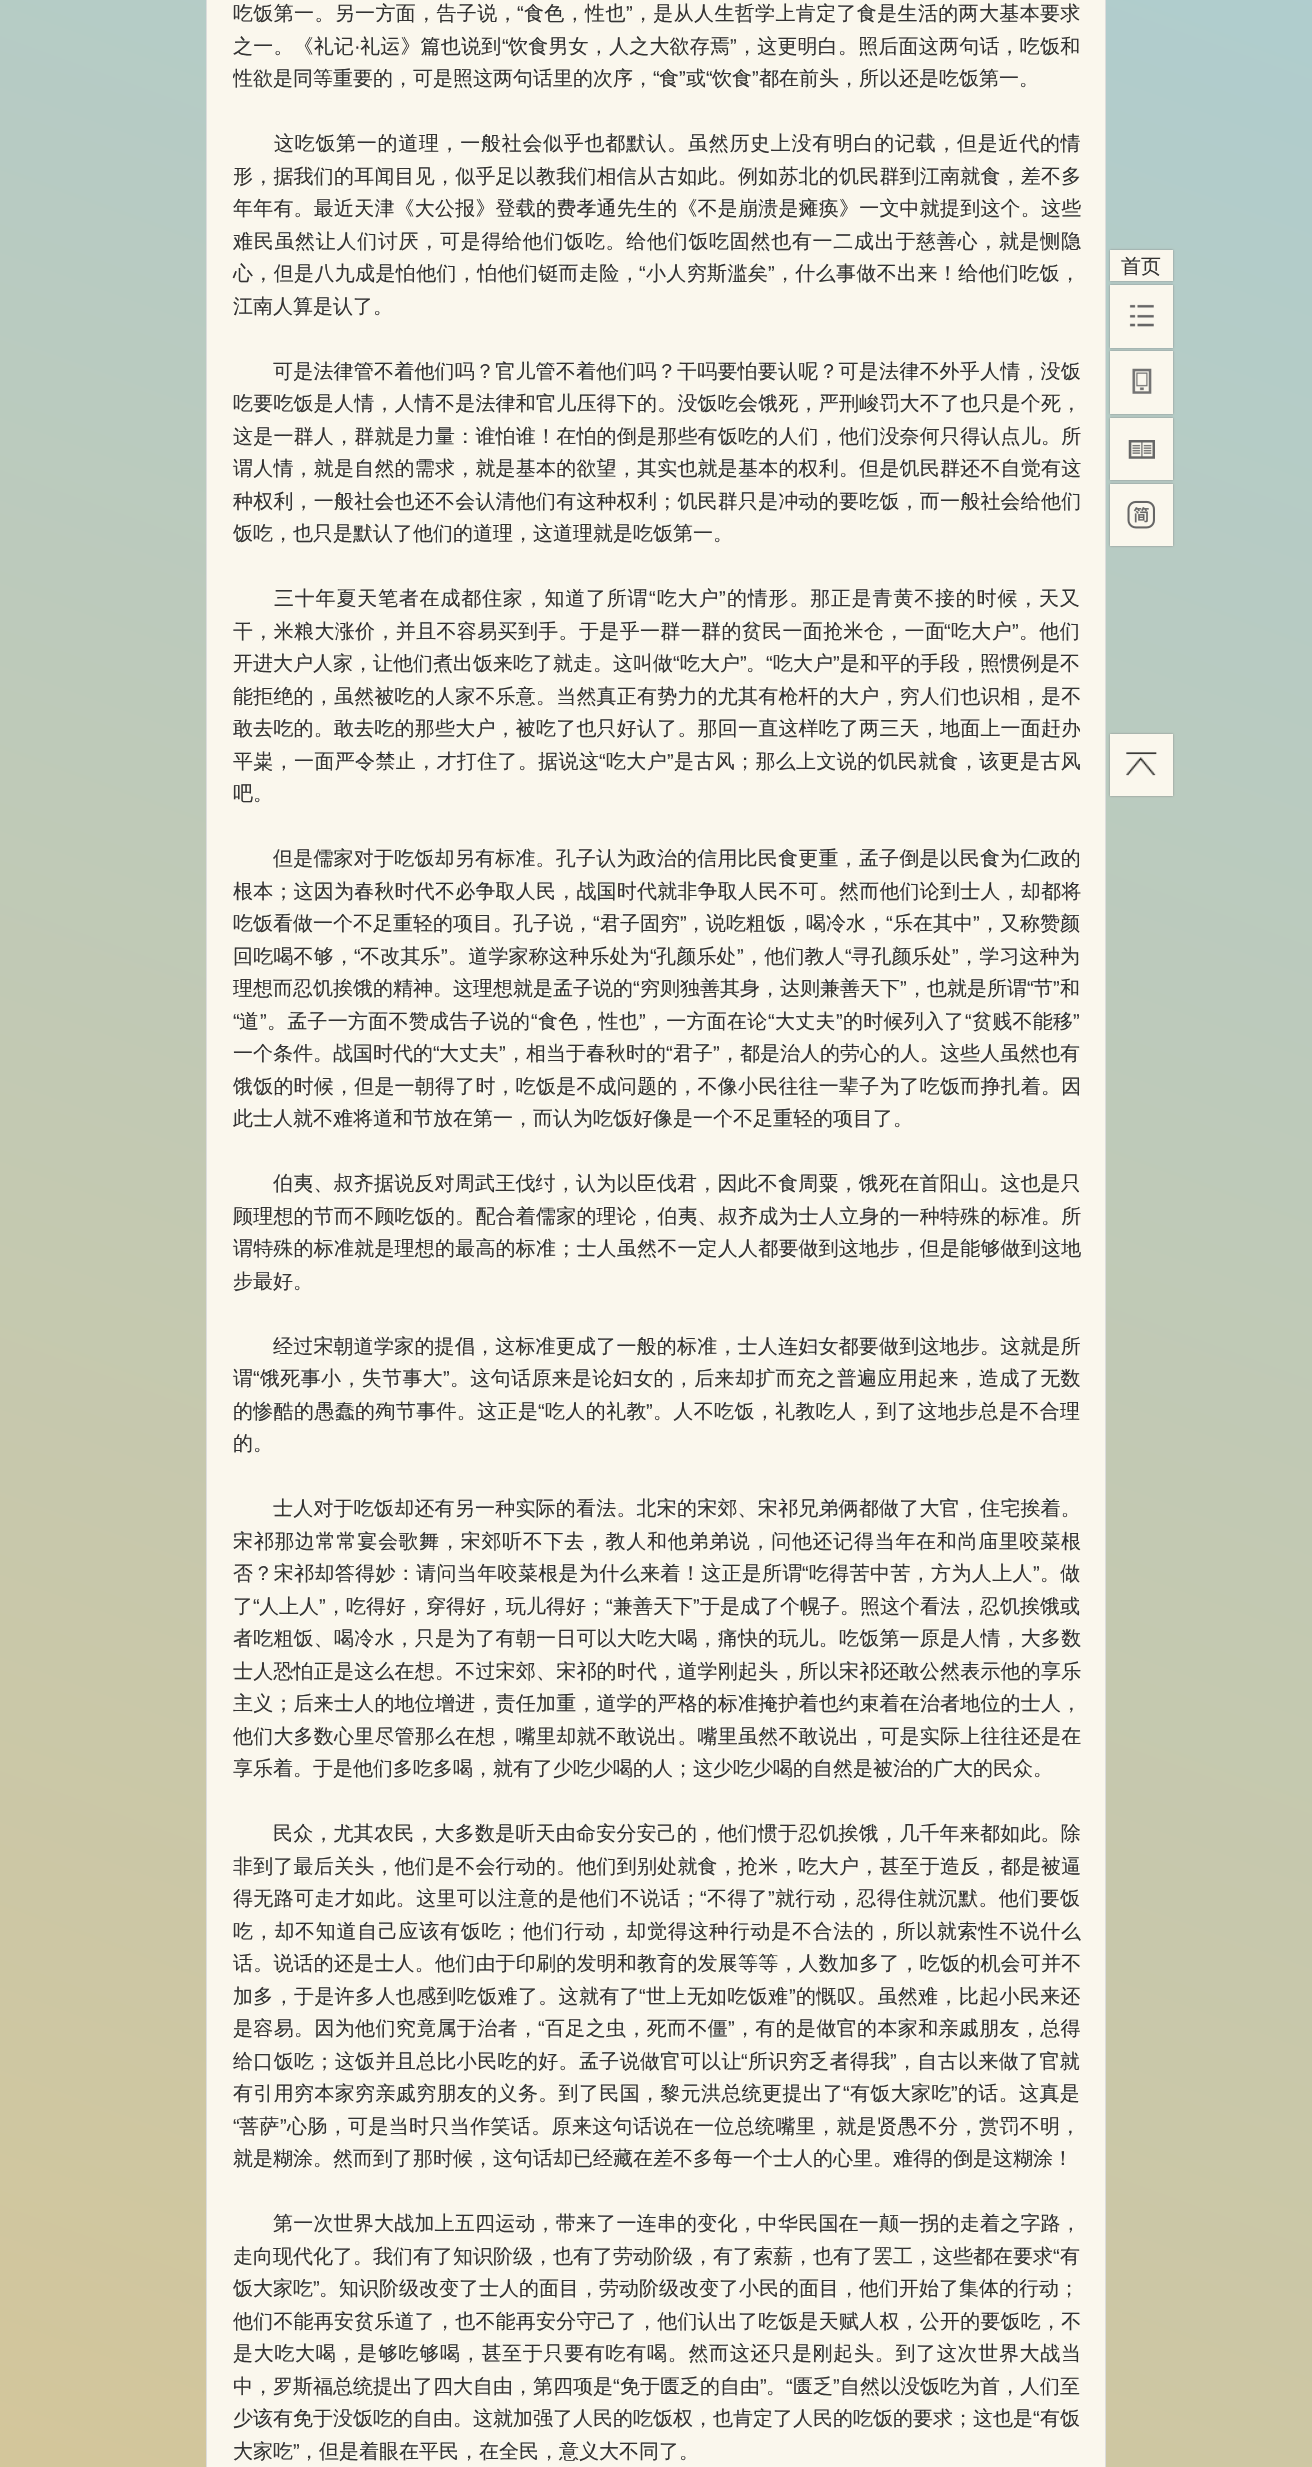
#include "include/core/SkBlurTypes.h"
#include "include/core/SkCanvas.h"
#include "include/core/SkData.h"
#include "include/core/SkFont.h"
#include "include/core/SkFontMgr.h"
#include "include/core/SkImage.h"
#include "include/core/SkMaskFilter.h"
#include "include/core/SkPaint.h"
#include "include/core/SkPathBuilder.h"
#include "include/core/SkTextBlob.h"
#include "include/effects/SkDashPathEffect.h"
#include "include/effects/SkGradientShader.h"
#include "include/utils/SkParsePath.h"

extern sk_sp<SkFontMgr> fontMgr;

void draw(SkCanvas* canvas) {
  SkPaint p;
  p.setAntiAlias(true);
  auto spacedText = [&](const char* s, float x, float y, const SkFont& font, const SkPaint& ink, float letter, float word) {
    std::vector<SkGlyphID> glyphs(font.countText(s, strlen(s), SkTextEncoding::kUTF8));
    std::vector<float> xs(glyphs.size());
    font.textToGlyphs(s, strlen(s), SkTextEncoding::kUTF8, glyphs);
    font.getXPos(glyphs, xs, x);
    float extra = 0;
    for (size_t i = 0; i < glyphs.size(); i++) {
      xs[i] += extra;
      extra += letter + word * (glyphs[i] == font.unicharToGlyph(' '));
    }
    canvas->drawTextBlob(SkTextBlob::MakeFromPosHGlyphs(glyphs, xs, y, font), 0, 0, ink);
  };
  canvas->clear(SK_ColorWHITE);
  {
    const SkColor colors[] = {SkColorSetRGB(174, 205, 208), SkColorSetRGB(216, 197, 148)};
    const float stops[] = {0, 1};
    const SkPoint ends[] = {{1214, -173}, {99, 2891}};
    p.setShader(SkGradientShader::MakeLinear(ends, colors, stops, 2, SkTileMode::kClamp));
    p.setAlpha(255);
  }
  canvas->drawRect(SkRect::MakeLTRB(0, 0, 1312, 2467), p);
  p.setShader(nullptr);
  p.setColor(SkColorSetRGB(250, 247, 237));
  canvas->drawRect(SkRect::MakeLTRB(207, 0, 1105, 2467), p);
  p.setColor(SkColorSetRGB(220, 220, 220));
  canvas->drawRect(SkRect::MakeLTRB(1105, 0, 1106, 2467), p);
  canvas->drawRect(SkRect::MakeLTRB(206, 0, 207, 2467), p);
  p.setColor(SkColorSetRGB(136, 136, 136));
  p.setMaskFilter(SkMaskFilter::MakeBlur(kNormal_SkBlurStyle, 1));
  canvas->drawRect(SkRect::MakeLTRB(1110, 250, 1173, 281), p);
  p.setMaskFilter(nullptr);
  p.setColor(SkColorSetRGB(250, 247, 237));
  canvas->drawRect(SkRect::MakeLTRB(1110, 250, 1173, 281), p);
  p.setColor(SkColorSetRGB(136, 136, 136));
  p.setMaskFilter(SkMaskFilter::MakeBlur(kNormal_SkBlurStyle, 1));
  canvas->drawRect(SkRect::MakeLTRB(1110, 285, 1173, 348), p);
  p.setMaskFilter(nullptr);
  p.setColor(SkColorSetRGB(250, 247, 237));
  canvas->drawRect(SkRect::MakeLTRB(1110, 285, 1173, 348), p);
  canvas->drawImageRect(SkImages::DeferredFromEncodedData(SkData::MakeFromFileName("images/1.png")), SkRect::MakeLTRB(1129, 304, 1154, 327), SkSamplingOptions());
  p.setColor(SkColorSetRGB(136, 136, 136));
  p.setMaskFilter(SkMaskFilter::MakeBlur(kNormal_SkBlurStyle, 1));
  canvas->drawRect(SkRect::MakeLTRB(1110, 351, 1173, 414), p);
  p.setMaskFilter(nullptr);
  p.setColor(SkColorSetRGB(250, 247, 237));
  canvas->drawRect(SkRect::MakeLTRB(1110, 351, 1173, 414), p);
  canvas->drawImageRect(SkImages::DeferredFromEncodedData(SkData::MakeFromFileName("images/2.png")), SkRect::MakeLTRB(1132, 368, 1152, 394), SkSamplingOptions());
  p.setColor(SkColorSetRGB(136, 136, 136));
  p.setMaskFilter(SkMaskFilter::MakeBlur(kNormal_SkBlurStyle, 1));
  canvas->drawRect(SkRect::MakeLTRB(1110, 418, 1173, 480), p);
  p.setMaskFilter(nullptr);
  p.setColor(SkColorSetRGB(250, 247, 237));
  canvas->drawRect(SkRect::MakeLTRB(1110, 418, 1173, 480), p);
  canvas->drawImageRect(SkImages::DeferredFromEncodedData(SkData::MakeFromFileName("images/3.png")), SkRect::MakeLTRB(1128, 440, 1155, 459), SkSamplingOptions());
  p.setColor(SkColorSetRGB(136, 136, 136));
  p.setMaskFilter(SkMaskFilter::MakeBlur(kNormal_SkBlurStyle, 1));
  canvas->drawRect(SkRect::MakeLTRB(1110, 484, 1173, 546), p);
  p.setMaskFilter(nullptr);
  p.setColor(SkColorSetRGB(250, 247, 237));
  canvas->drawRect(SkRect::MakeLTRB(1110, 484, 1173, 546), p);
  canvas->drawImageRect(SkImages::DeferredFromEncodedData(SkData::MakeFromFileName("images/4.png")), SkRect::MakeLTRB(1127, 500, 1155, 529), SkSamplingOptions());
  p.setColor(SkColorSetRGB(136, 136, 136));
  p.setMaskFilter(SkMaskFilter::MakeBlur(kNormal_SkBlurStyle, 1));
  canvas->drawRect(SkRect::MakeLTRB(1110, 734, 1173, 796), p);
  p.setMaskFilter(nullptr);
  p.setColor(SkColorSetRGB(250, 247, 237));
  canvas->drawRect(SkRect::MakeLTRB(1110, 734, 1173, 796), p);
  canvas->drawImageRect(SkImages::DeferredFromEncodedData(SkData::MakeFromFileName("images/5.png")), SkRect::MakeLTRB(1126, 752, 1157, 776), SkSamplingOptions());
  SkFont font1(fontMgr->matchFamilyStyle("WenQuanYi Zen Hei", SkFontStyle(500, SkFontStyle::kNormal_Width, SkFontStyle::kUpright_Slant)), 20);
  font1.setSubpixel(true);
  p.setColor(SkColorSetRGB(51, 51, 51));
  spacedText("吃饭第一。另一方面，告子说，", 233, 20, font1, p, 0.35f, 0);
  SkFont font2(fontMgr->matchFamilyStyle("Liberation Sans", SkFontStyle::Normal()), 20);
  font2.setSubpixel(true);
  spacedText("“", 517, 20, font2, p, 0.35f, 0);
  spacedText("食色，性也", 524, 20, font1, p, 0.35f, 0);
  spacedText("”", 626, 20, font2, p, 0.35f, 0);
  spacedText("，是从人生哲学上肯定了食是生活的两大基本要求", 633, 20, font1, p, 0.35f, 0);
  spacedText("之一。《礼记", 233, 53, font1, p, 0.2f, 0);
  spacedText("礼运》篇也说到", 360, 53, font1, p, 0.2f, 0);
  spacedText("“", 502, 53, font2, p, 0.2f, 0);
  spacedText("饮食男女，人之大欲存焉", 508, 53, font1, p, 0.2f, 0);
  spacedText("”", 730, 53, font2, p, 0.2f, 0);
  spacedText("，这更明白。照后面这两句话，吃饭和", 737, 53, font1, p, 0.2f, 0);
  spacedText("·", 354, 53, font2, p, 0.2f, 0);
  canvas->save();
  canvas->clipRect(SkRect::MakeLTRB(233, 0, 1080, 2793));
  canvas->drawString("性欲是同等重要的，可是照这两句话里的次序，", 233, 85, font1, p);
  canvas->restore();
  canvas->drawString("“", 653, 85, font2, p);
  canvas->drawString("食", 659, 85, font1, p);
  canvas->drawString("”", 679, 85, font2, p);
  canvas->drawString("或", 686, 85, font1, p);
  canvas->drawString("“", 706, 85, font2, p);
  canvas->drawString("饮食", 712, 85, font1, p);
  canvas->drawString("”", 752, 85, font2, p);
  canvas->drawString("都在前头，所以还是吃饭第一。", 759, 85, font1, p);
  spacedText("这吃饭第一的道理，一般社会似乎也都默认。虽然历史上没有明白的记载，但是近代的情", 274, 150, font1, p, 0.7f, 0);
  spacedText("形，据我们的耳闻目见，似乎足以教我们相信从古如此。例如苏北的饥民群到江南就食，差不多", 233, 183, font1, p, 0.2f, 0);
  spacedText("年年有。最近天津《大公报》登载的费孝通先生的《不是崩溃是瘫痪》一文中就提到这个。这些", 233, 215, font1, p, 0.2f, 0);
  spacedText("难民虽然让人们讨厌，可是得给他们饭吃。给他们饭吃固然也有一二成出于慈善心，就是恻隐", 233, 248, font1, p, 0.7f, 0);
  spacedText("心，但是八九成是怕他们，怕他们铤而走险，", 233, 280, font1, p, 0.35f, 0);
  spacedText("“", 639, 280, font2, p, 0.35f, 0);
  spacedText("小人穷斯滥矣", 646, 280, font1, p, 0.35f, 0);
  spacedText("”", 768, 280, font2, p, 0.35f, 0);
  spacedText("，什么事做不出来！给他们吃饭，", 775, 280, font1, p, 0.35f, 0);
  canvas->drawString("江南人算是认了。", 233, 313, font1, p);
  spacedText("可是法律管不着他们吗？官儿管不着他们吗？干吗要怕要认呢？可是法律不外乎人情，没饭", 273, 378, font1, p, 0.2f, 0);
  spacedText("吃要吃饭是人情，人情不是法律和官儿压得下的。没饭吃会饿死，严刑峻罚大不了也只是个死，", 233, 410, font1, p, 0.2f, 0);
  spacedText("这是一群人，群就是力量：谁怕谁！在怕的倒是那些有饭吃的人们，他们没奈何只得认点儿。所", 233, 443, font1, p, 0.2f, 0);
  spacedText("谓人情，就是自然的需求，就是基本的欲望，其实也就是基本的权利。但是饥民群还不自觉有这", 233, 475, font1, p, 0.2f, 0);
  spacedText("种权利，一般社会也还不会认清他们有这种权利；饥民群只是冲动的要吃饭，而一般社会给他们", 233, 508, font1, p, 0.2f, 0);
  canvas->drawString("饭吃，也只是默认了他们的道理，这道理就是吃饭第一。", 233, 540, font1, p);
  spacedText("三十年夏天笔者在成都住家，知道了所谓", 274, 605, font1, p, 0.8f, 0);
  spacedText("“", 649, 605, font2, p, 0.8f, 0);
  spacedText("吃大户", 657, 605, font1, p, 0.8f, 0);
  spacedText("”", 719, 605, font2, p, 0.8f, 0);
  spacedText("的情形。那正是青黄不接的时候，天又", 727, 605, font1, p, 0.8f, 0);
  spacedText("干，米粮大涨价，并且不容易买到手。于是乎一群一群的贫民一面抢米仓，一面", 233, 638, font1, p, 0.35f, 0);
  spacedText("“", 944, 638, font2, p, 0.35f, 0);
  spacedText("吃大户", 951, 638, font1, p, 0.35f, 0);
  spacedText("”", 1012, 638, font2, p, 0.35f, 0);
  spacedText("。他们", 1019, 638, font1, p, 0.35f, 0);
  canvas->drawString("开进大户人家，让他们煮出饭来吃了就走。这叫做", 233, 670, font1, p);
  canvas->drawString("“", 673, 670, font2, p);
  canvas->drawString("吃大户", 680, 670, font1, p);
  canvas->drawString("”", 740, 670, font2, p);
  canvas->drawString("“", 766, 670, font2, p);
  canvas->drawString("吃大户", 773, 670, font1, p);
  canvas->drawString("”", 833, 670, font2, p);
  canvas->drawString("是和平的手段，照惯例是不", 840, 670, font1, p);
  canvas->drawString("。", 746, 670, font1, p);
  spacedText("能拒绝的，虽然被吃的人家不乐意。当然真正有势力的尤其有枪杆的大户，穷人们也识相，是不", 233, 703, font1, p, 0.2f, 0);
  canvas->save();
  canvas->clipRect(SkRect::MakeLTRB(233, 0, 1080, 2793));
  spacedText("敢去吃的。敢去吃的那些大户，被吃了也只好认了。那回一直这样吃了两三天，地面上一面赶办", 233, 735, font1, p, 0.2f, 0);
  canvas->restore();
  spacedText("平粜，一面严令禁止，才打住了。据说这", 233, 768, font1, p, 0.35f, 0);
  spacedText("“", 599, 768, font2, p, 0.35f, 0);
  spacedText("吃大户", 606, 768, font1, p, 0.35f, 0);
  spacedText("”", 667, 768, font2, p, 0.35f, 0);
  spacedText("是古风；那么上文说的饥民就食，该更是古风", 674, 768, font1, p, 0.35f, 0);
  canvas->drawString("吧。", 233, 800, font1, p);
  spacedText("但是儒家对于吃饭却另有标准。孔子认为政治的信用比民食更重，孟子倒是以民食为仁政的", 273, 865, font1, p, 0.2f, 0);
  spacedText("根本；这因为春秋时代不必争取人民，战国时代就非争取人民不可。然而他们论到士人，却都将", 233, 898, font1, p, 0.2f, 0);
  canvas->drawString("吃饭看做一个不足重轻的项目。孔子说，", 233, 930, font1, p);
  canvas->drawString("“", 593, 930, font2, p);
  canvas->drawString("君子固穷", 600, 930, font1, p);
  canvas->drawString("”", 680, 930, font2, p);
  canvas->drawString("，说吃粗饭，喝冷水，", 686, 930, font1, p);
  canvas->drawString("“", 886, 930, font2, p);
  canvas->drawString("乐在其中", 893, 930, font1, p);
  canvas->drawString("”", 973, 930, font2, p);
  canvas->drawString("，又称赞颜", 980, 930, font1, p);
  spacedText("回吃喝不够，", 233, 963, font1, p, 0.2f, 0);
  spacedText("“", 354, 963, font2, p, 0.2f, 0);
  spacedText("不改其乐", 360, 963, font1, p, 0.2f, 0);
  spacedText("”", 441, 963, font2, p, 0.2f, 0);
  spacedText("。道学家称这种乐处为", 448, 963, font1, p, 0.2f, 0);
  spacedText("“", 650, 963, font2, p, 0.2f, 0);
  spacedText("孔颜乐处", 656, 963, font1, p, 0.2f, 0);
  spacedText("”", 737, 963, font2, p, 0.2f, 0);
  spacedText("，他们教人", 744, 963, font1, p, 0.2f, 0);
  spacedText("“", 845, 963, font2, p, 0.2f, 0);
  spacedText("寻孔颜乐处", 851, 963, font1, p, 0.2f, 0);
  spacedText("”", 952, 963, font2, p, 0.2f, 0);
  spacedText("，学习这种为", 959, 963, font1, p, 0.2f, 0);
  canvas->save();
  canvas->clipRect(SkRect::MakeLTRB(233, 0, 1080, 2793));
  canvas->drawString("理想而忍饥挨饿的精神。这理想就是孟子说的", 233, 995, font1, p);
  canvas->restore();
  canvas->drawString("“", 633, 995, font2, p);
  canvas->drawString("穷则独善其身，达则兼善天下", 640, 995, font1, p);
  canvas->drawString("”", 900, 995, font2, p);
  canvas->drawString("，也就是所谓", 907, 995, font1, p);
  canvas->drawString("“", 1027, 995, font2, p);
  canvas->drawString("节", 1033, 995, font1, p);
  canvas->drawString("”", 1053, 995, font2, p);
  canvas->drawString("和", 1060, 995, font1, p);
  spacedText("“", 233, 1028, font2, p, 0.25f, 0);
  spacedText("道", 239, 1028, font1, p, 0.25f, 0);
  spacedText("”", 260, 1028, font2, p, 0.25f, 0);
  spacedText("。孟子一方面不赞成告子说的", 267, 1028, font1, p, 0.25f, 0);
  spacedText("“", 531, 1028, font2, p, 0.25f, 0);
  spacedText("食色，性也", 538, 1028, font1, p, 0.25f, 0);
  spacedText("”", 639, 1028, font2, p, 0.25f, 0);
  spacedText("，一方面在论", 646, 1028, font1, p, 0.25f, 0);
  spacedText("“", 768, 1028, font2, p, 0.25f, 0);
  spacedText("大丈夫", 775, 1028, font1, p, 0.25f, 0);
  spacedText("”", 836, 1028, font2, p, 0.25f, 0);
  spacedText("的时候列入了", 843, 1028, font1, p, 0.25f, 0);
  spacedText("“", 965, 1028, font2, p, 0.25f, 0);
  spacedText("贫贱不能移", 972, 1028, font1, p, 0.25f, 0);
  spacedText("”", 1073, 1028, font2, p, 0.25f, 0);
  canvas->drawString("一个条件。战国时代的", 233, 1060, font1, p);
  canvas->drawString("“", 433, 1060, font2, p);
  canvas->drawString("大丈夫", 439, 1060, font1, p);
  canvas->drawString("”", 499, 1060, font2, p);
  canvas->drawString("，相当于春秋时的", 506, 1060, font1, p);
  canvas->drawString("“", 666, 1060, font2, p);
  canvas->drawString("君子", 673, 1060, font1, p);
  canvas->drawString("”", 713, 1060, font2, p);
  canvas->drawString("，都是治人的劳心的人。这些人虽然也有", 720, 1060, font1, p);
  spacedText("饿饭的时候，但是一朝得了时，吃饭是不成问题的，不像小民往往一辈子为了吃饭而挣扎着。因", 233, 1093, font1, p, 0.2f, 0);
  canvas->drawString("此士人就不难将道和节放在第一，而认为吃饭好像是一个不足重轻的项目了。", 233, 1125, font1, p);
  spacedText("伯夷、叔齐据说反对周武王伐纣，认为以臣伐君，因此不食周粟，饿死在首阳山。这也是只", 273, 1190, font1, p, 0.2f, 0);
  spacedText("顾理想的节而不顾吃饭的。配合着儒家的理论，伯夷、叔齐成为士人立身的一种特殊的标准。所", 233, 1223, font1, p, 0.2f, 0);
  spacedText("谓特殊的标准就是理想的最高的标准；士人虽然不一定人人都要做到这地步，但是能够做到这地", 233, 1255, font1, p, 0.2f, 0);
  canvas->drawString("步最好。", 233, 1288, font1, p);
  spacedText("经过宋朝道学家的提倡，这标准更成了一般的标准，士人连妇女都要做到这地步。这就是所", 273, 1353, font1, p, 0.2f, 0);
  spacedText("谓", 233, 1385, font1, p, 0.35f, 0);
  spacedText("“", 253, 1385, font2, p, 0.35f, 0);
  spacedText("饿死事小，失节事大", 260, 1385, font1, p, 0.35f, 0);
  spacedText("”", 443, 1385, font2, p, 0.35f, 0);
  spacedText("。这句话原来是论妇女的，后来却扩而充之普遍应用起来，造成了无数", 450, 1385, font1, p, 0.35f, 0);
  spacedText("的惨酷的愚蠢的殉节事件。这正是", 233, 1418, font1, p, 0.35f, 0);
  spacedText("“", 538, 1418, font2, p, 0.35f, 0);
  spacedText("吃人的礼教", 545, 1418, font1, p, 0.35f, 0);
  spacedText("”", 646, 1418, font2, p, 0.35f, 0);
  spacedText("。人不吃饭，礼教吃人，到了这地步总是不合理", 653, 1418, font1, p, 0.35f, 0);
  canvas->drawString("的。", 233, 1450, font1, p);
  spacedText("士人对于吃饭却还有另一种实际的看法。北宋的宋郊、宋祁兄弟俩都做了大官，住宅挨着。", 273, 1515, font1, p, 0.2f, 0);
  spacedText("宋祁那边常常宴会歌舞，宋郊听不下去，教人和他弟弟说，问他还记得当年在和尚庙里咬菜根", 233, 1548, font1, p, 0.7f, 0);
  spacedText("否？宋祁却答得妙：请问当年咬菜根是为什么来着！这正是所谓", 233, 1580, font1, p, 0.35f, 0);
  spacedText("“", 802, 1580, font2, p, 0.35f, 0);
  spacedText("吃得苦中苦，方为人上人", 809, 1580, font1, p, 0.35f, 0);
  spacedText("”", 1033, 1580, font2, p, 0.35f, 0);
  spacedText("。做", 1040, 1580, font1, p, 0.35f, 0);
  canvas->drawString("了", 233, 1613, font1, p);
  canvas->drawString("“", 253, 1613, font2, p);
  canvas->drawString("人上人", 259, 1613, font1, p);
  canvas->drawString("”", 319, 1613, font2, p);
  canvas->drawString("，吃得好，穿得好，玩儿得好；", 326, 1613, font1, p);
  canvas->drawString("“", 606, 1613, font2, p);
  canvas->drawString("兼善天下", 613, 1613, font1, p);
  canvas->drawString("”", 693, 1613, font2, p);
  canvas->drawString("于是成了个幌子。照这个看法，忍饥挨饿或", 700, 1613, font1, p);
  spacedText("者吃粗饭、喝冷水，只是为了有朝一日可以大吃大喝，痛快的玩儿。吃饭第一原是人情，大多数", 233, 1645, font1, p, 0.2f, 0);
  spacedText("士人恐怕正是这么在想。不过宋郊、宋祁的时代，道学刚起头，所以宋祁还敢公然表示他的享乐", 233, 1678, font1, p, 0.2f, 0);
  spacedText("主义；后来士人的地位增进，责任加重，道学的严格的标准掩护着也约束着在治者地位的士人，", 233, 1710, font1, p, 0.2f, 0);
  spacedText("他们大多数心里尽管那么在想，嘴里却就不敢说出。嘴里虽然不敢说出，可是实际上往往还是在", 233, 1743, font1, p, 0.2f, 0);
  canvas->drawString("享乐着。于是他们多吃多喝，就有了少吃少喝的人；这少吃少喝的自然是被治的广大的民众。", 233, 1775, font1, p);
  spacedText("民众，尤其农民，大多数是听天由命安分安己的，他们惯于忍饥挨饿，几千年来都如此。除", 273, 1840, font1, p, 0.2f, 0);
  spacedText("非到了最后关头，他们是不会行动的。他们到别处就食，抢米，吃大户，甚至于造反，都是被逼", 233, 1873, font1, p, 0.2f, 0);
  spacedText("得无路可走才如此。这里可以注意的是他们不说话；", 233, 1905, font1, p, 0.35f, 0);
  spacedText("“", 700, 1905, font2, p, 0.35f, 0);
  spacedText("不得了", 707, 1905, font1, p, 0.35f, 0);
  spacedText("”", 768, 1905, font2, p, 0.35f, 0);
  spacedText("就行动，忍得住就沉默。他们要饭", 775, 1905, font1, p, 0.35f, 0);
  spacedText("吃，却不知道自己应该有饭吃；他们行动，却觉得这种行动是不合法的，所以就索性不说什么", 233, 1938, font1, p, 0.7f, 0);
  spacedText("话。说话的还是士人。他们由于印刷的发明和教育的发展等等，人数加多了，吃饭的机会可并不", 233, 1970, font1, p, 0.2f, 0);
  spacedText("加多，于是许多人也感到吃饭难了。这就有了", 233, 2003, font1, p, 0.35f, 0);
  spacedText("“", 639, 2003, font2, p, 0.35f, 0);
  spacedText("世上无如吃饭难", 646, 2003, font1, p, 0.35f, 0);
  spacedText("”", 789, 2003, font2, p, 0.35f, 0);
  spacedText("的慨叹。虽然难，比起小民来还", 796, 2003, font1, p, 0.35f, 0);
  spacedText("是容易。因为他们究竟属于治者，", 233, 2035, font1, p, 0.35f, 0);
  spacedText("“", 538, 2035, font2, p, 0.35f, 0);
  spacedText("百足之虫，死而不僵", 545, 2035, font1, p, 0.35f, 0);
  spacedText("”", 728, 2035, font2, p, 0.35f, 0);
  spacedText("，有的是做官的本家和亲戚朋友，总得", 735, 2035, font1, p, 0.35f, 0);
  spacedText("给口饭吃；这饭并且总比小民吃的好。孟子说做官可以让", 233, 2068, font1, p, 0.35f, 0);
  spacedText("“", 741, 2068, font2, p, 0.35f, 0);
  spacedText("所识穷乏者得我", 748, 2068, font1, p, 0.35f, 0);
  spacedText("”", 890, 2068, font2, p, 0.35f, 0);
  spacedText("，自古以来做了官就", 897, 2068, font1, p, 0.35f, 0);
  spacedText("有引用穷本家穷亲戚穷朋友的义务。到了民国，黎元洪总统更提出了", 233, 2100, font1, p, 0.35f, 0);
  spacedText("“", 843, 2100, font2, p, 0.35f, 0);
  spacedText("有饭大家吃", 850, 2100, font1, p, 0.35f, 0);
  spacedText("”", 951, 2100, font2, p, 0.35f, 0);
  spacedText("的话。这真是", 958, 2100, font1, p, 0.35f, 0);
  spacedText("“", 233, 2133, font2, p, 0.35f, 0);
  spacedText("菩萨", 239, 2133, font1, p, 0.35f, 0);
  spacedText("”", 280, 2133, font2, p, 0.35f, 0);
  spacedText("心肠，可是当时只当作笑话。原来这句话说在一位总统嘴里，就是贤愚不分，赏罚不明，", 287, 2133, font1, p, 0.35f, 0);
  canvas->drawString("就是糊涂。然而到了那时候，这句话却已经藏在差不多每一个士人的心里。难得的倒是这糊涂！", 233, 2165, font1, p);
  spacedText("第一次世界大战加上五四运动，带来了一连串的变化，中华民国在一颠一拐的走着之字路，", 273, 2230, font1, p, 0.2f, 0);
  canvas->drawString("走向现代化了。我们有了知识阶级，也有了劳动阶级，有了索薪，也有了罢工，这些都在要求", 233, 2263, font1, p);
  canvas->drawString("“", 1053, 2263, font2, p);
  canvas->drawString("有", 1060, 2263, font1, p);
  canvas->drawString("饭大家吃", 233, 2295, font1, p);
  canvas->drawString("”", 313, 2295, font2, p);
  canvas->drawString("。知识阶级改变了士人的面目，劳动阶级改变了小民的面目，他们开始了集体的行动；", 319, 2295, font1, p);
  spacedText("他们不能再安贫乐道了，也不能再安分守己了，他们认出了吃饭是天赋人权，公开的要饭吃，不", 233, 2328, font1, p, 0.2f, 0);
  spacedText("是大吃大喝，是够吃够喝，甚至于只要有吃有喝。然而这还只是刚起头。到了这次世界大战当", 233, 2360, font1, p, 0.7f, 0);
  canvas->drawString("中，罗斯福总统提出了四大自由，第四项是", 233, 2393, font1, p);
  canvas->drawString("“", 613, 2393, font2, p);
  canvas->drawString("免于匮乏的自由", 620, 2393, font1, p);
  canvas->drawString("”", 760, 2393, font2, p);
  canvas->drawString("“", 786, 2393, font2, p);
  canvas->drawString("匮乏", 793, 2393, font1, p);
  canvas->drawString("”", 833, 2393, font2, p);
  canvas->drawString("自然以没饭吃为首，人们至", 840, 2393, font1, p);
  canvas->drawString("。", 766, 2393, font1, p);
  canvas->drawString("少该有免于没饭吃的自由。这就加强了人民的吃饭权，也肯定了人民的吃饭的要求；这也是", 233, 2425, font1, p);
  canvas->drawString("“", 1033, 2425, font2, p);
  canvas->drawString("有饭", 1040, 2425, font1, p);
  canvas->drawString("大家吃", 233, 2458, font1, p);
  canvas->drawString("”", 293, 2458, font2, p);
  canvas->drawString("，但是着眼在平民，在全民，意义大不同了。", 299, 2458, font1, p);
  canvas->drawString("首页", 1121, 273, font1, p);
}
